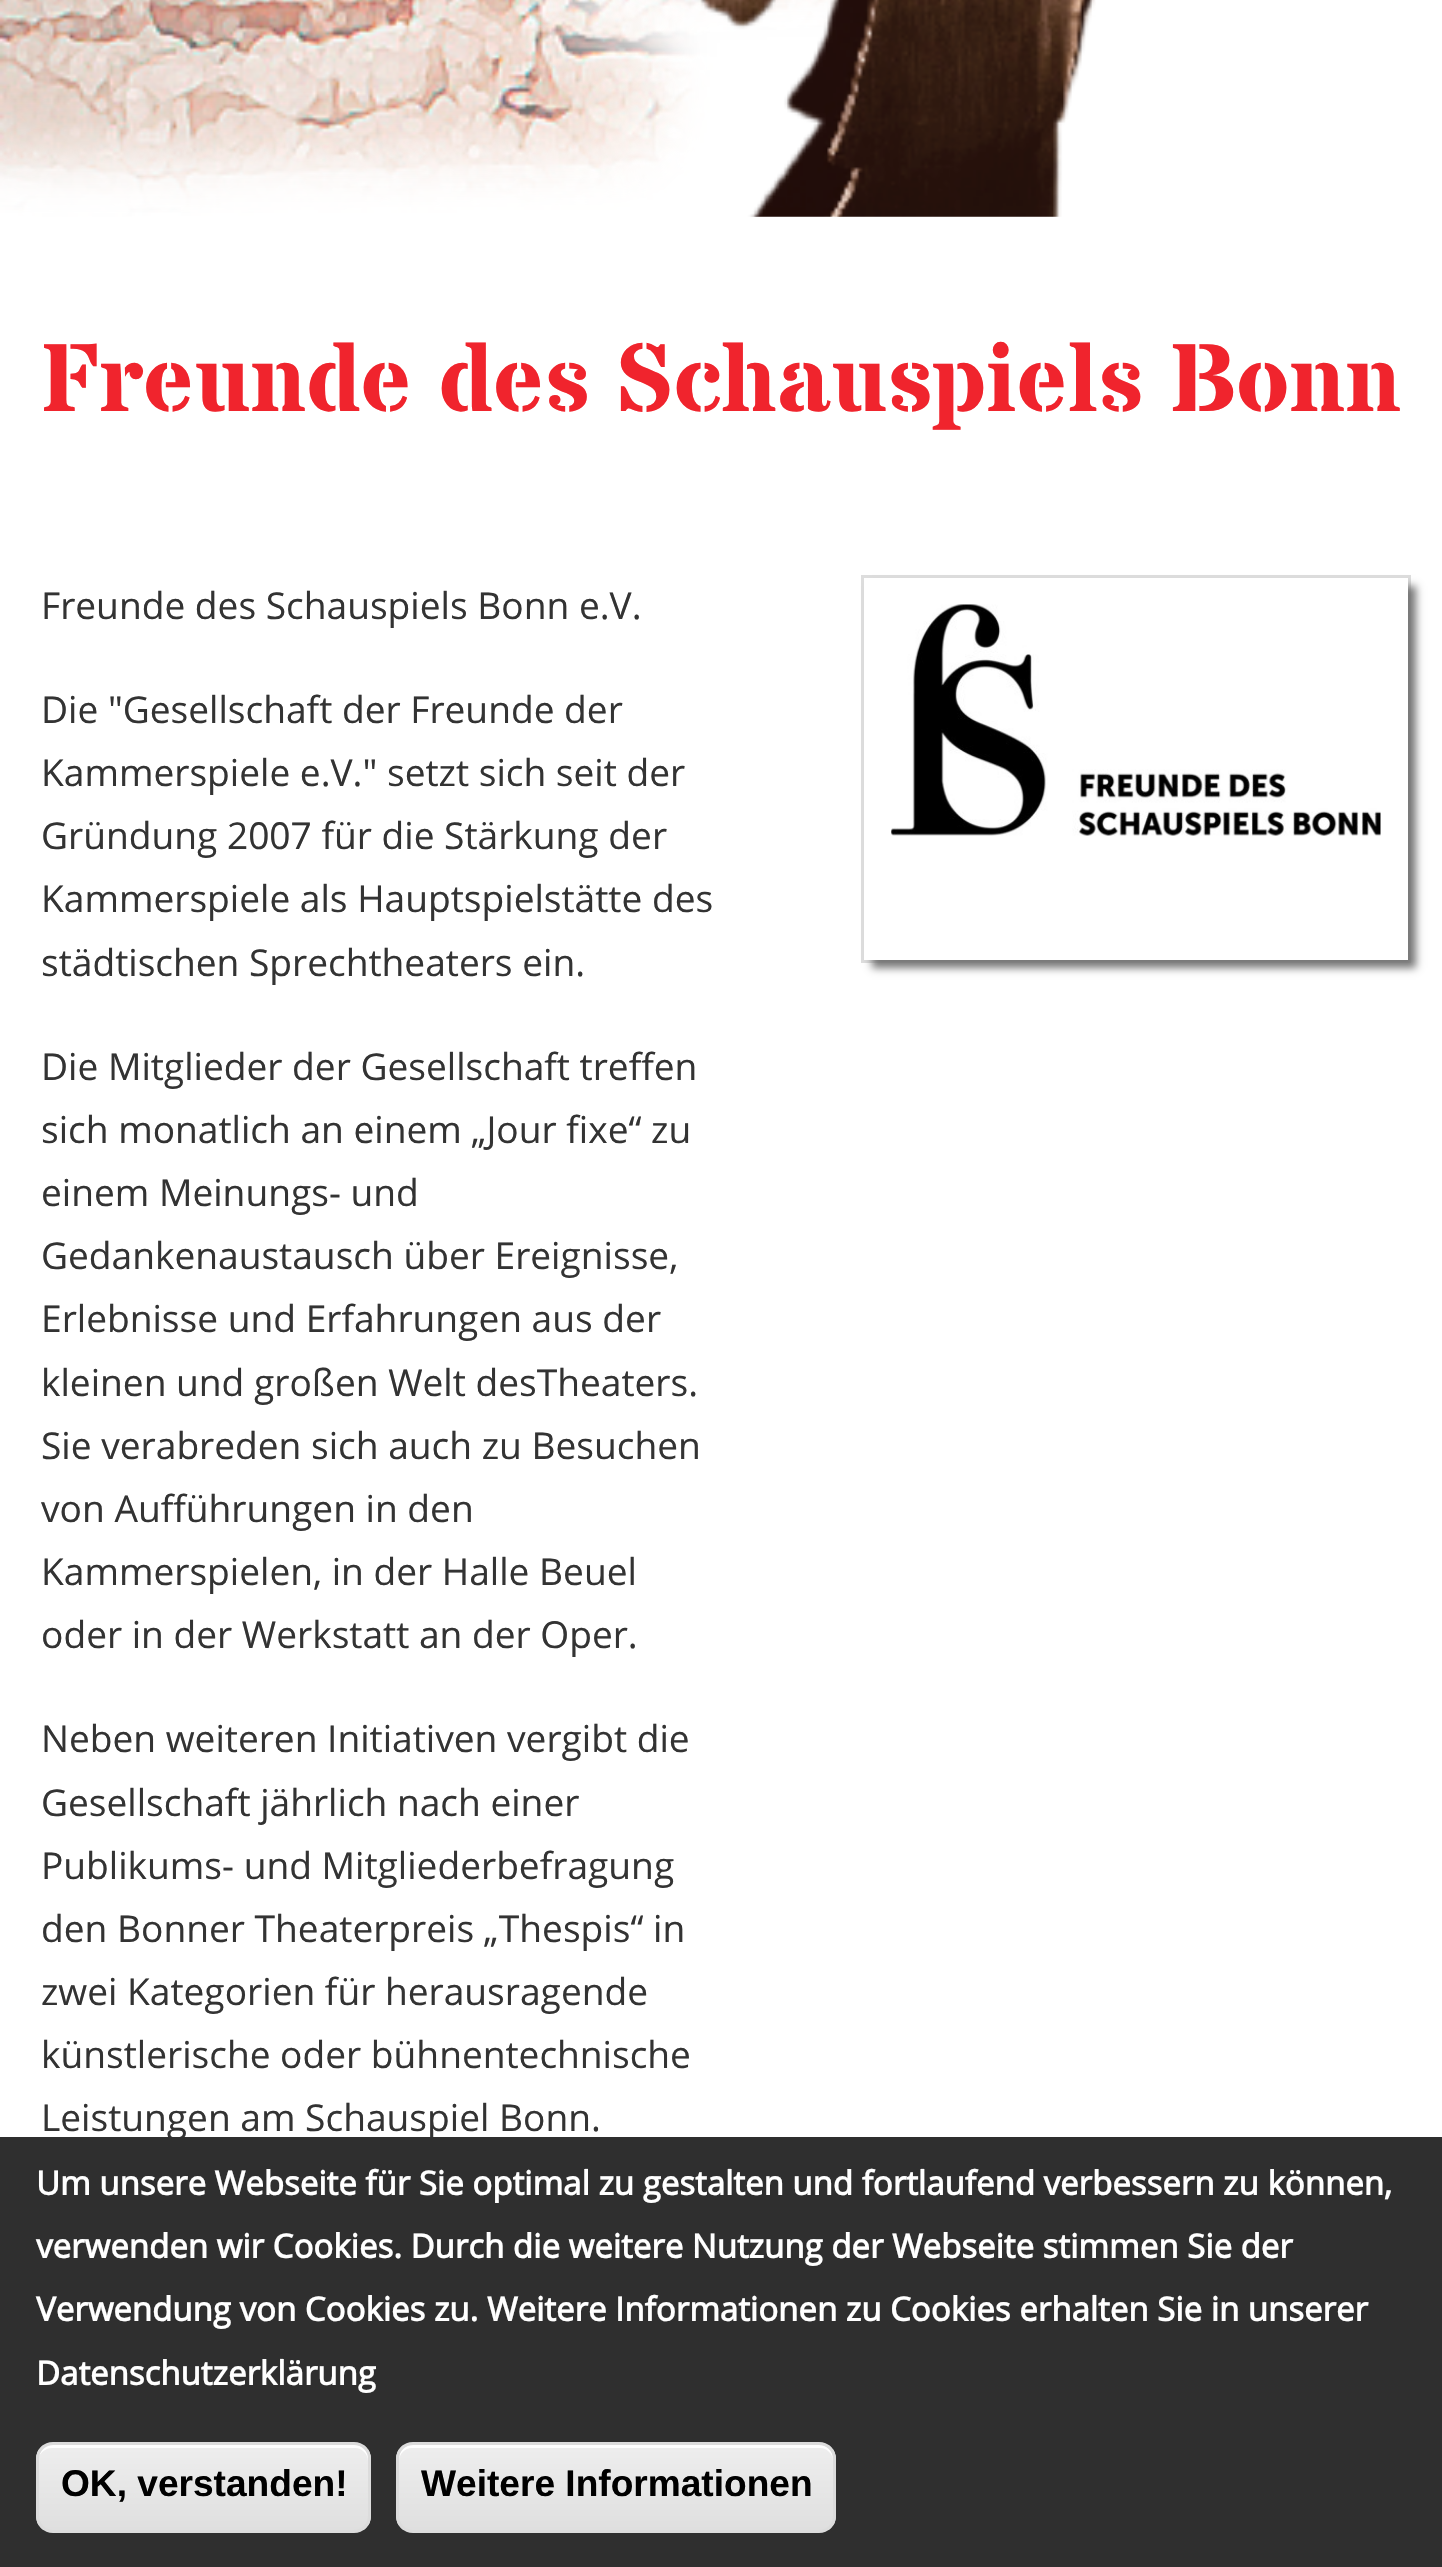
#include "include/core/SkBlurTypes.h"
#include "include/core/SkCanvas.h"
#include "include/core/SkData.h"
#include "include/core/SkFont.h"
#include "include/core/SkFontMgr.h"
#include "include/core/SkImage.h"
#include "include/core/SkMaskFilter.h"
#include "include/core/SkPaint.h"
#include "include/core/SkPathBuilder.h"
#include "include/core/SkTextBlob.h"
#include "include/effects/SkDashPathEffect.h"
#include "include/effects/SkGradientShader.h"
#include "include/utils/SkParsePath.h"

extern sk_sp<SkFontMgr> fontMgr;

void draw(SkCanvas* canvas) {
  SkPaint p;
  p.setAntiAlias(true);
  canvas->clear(SK_ColorWHITE);
  canvas->drawImageRect(SkImages::DeferredFromEncodedData(SkData::MakeFromFileName("images/1.png")), SkRect::MakeLTRB(0, 0, 1096, 217), SkSamplingOptions());
  p.setStyle(SkPaint::kStroke_Style);
  p.setStrokeWidth(3);
  p.setColor(SkColorSetRGB(221, 221, 221));
  canvas->drawRect(SkRect::MakeLTRB(862.5f, 576.5f, 1409.5f, 961.5f), p);
  canvas->save();
  canvas->clipPath(SkPathBuilder(SkPathFillType::kEvenOdd).moveTo(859, 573).lineTo(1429, 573).lineTo(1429, 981).lineTo(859, 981).close().moveTo(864, 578).lineTo(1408, 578).lineTo(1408, 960).lineTo(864, 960).close().detach(), true);
  p.setStyle(SkPaint::kFill_Style);
  p.setColor(SkColorSetRGB(119, 119, 119));
  p.setMaskFilter(SkMaskFilter::MakeBlur(kNormal_SkBlurStyle, 4));
  canvas->drawRect(SkRect::MakeLTRB(872, 586, 1416, 968), p);
  p.setMaskFilter(nullptr);
  canvas->restore();
  canvas->drawImageRect(SkImages::DeferredFromEncodedData(SkData::MakeFromFileName("images/2.png")), SkRect::MakeLTRB(891, 604, 1381, 836), SkSamplingOptions());
  p.setColor(SK_ColorWHITE);
  canvas->drawRect(SkRect::MakeLTRB(866, 959, 1408, 960), p);
  SkFont font1(fontMgr->matchFamilyStyle("Stardos Stencil", SkFontStyle::Bold()), 96.25f);
  font1.setSubpixel(true);
  p.setColor(SkColorSetRGB(240, 36, 45));
  canvas->drawString("Freunde des Schauspiels Bonn", 41, 411, font1, p);
  SkFont font2(fontMgr->matchFamilyStyle("Open Sans", SkFontStyle::Normal()), 37.1f);
  font2.setSubpixel(true);
  p.setColor(SkColorSetRGB(51, 51, 51));
  canvas->drawString("Freunde des Schauspiels Bonn e.V.", 41, 619, font2, p);
  canvas->drawString("Die \"Gesellschaft der Freunde der", 41, 723, font2, p);
  canvas->drawString("Kammerspiele e.V.\" setzt sich seit der", 41, 786, font2, p);
  canvas->drawString("Gründung 2007 für die Stärkung der", 41, 849, font2, p);
  canvas->drawString("Kammerspiele als Hauptspielstätte des", 41, 912, font2, p);
  canvas->drawString("städtischen Sprechtheaters ein.", 41, 976, font2, p);
  canvas->drawString("Die Mitglieder der Gesellschaft treffen", 41, 1080, font2, p);
  canvas->drawString("sich monatlich an einem „Jour fixe“ zu", 41, 1143, font2, p);
  canvas->drawString("einem Meinungs- und", 41, 1206, font2, p);
  canvas->drawString("Gedankenaustausch über Ereignisse,", 41, 1269, font2, p);
  canvas->drawString("Erlebnisse und Erfahrungen aus der", 41, 1332, font2, p);
  canvas->drawString("kleinen und großen Welt desTheaters.", 41, 1396, font2, p);
  canvas->drawString("Sie verabreden sich auch zu Besuchen", 41, 1459, font2, p);
  canvas->drawString("von Aufführungen in den", 41, 1522, font2, p);
  canvas->drawString("Kammerspielen, in der Halle Beuel", 41, 1585, font2, p);
  canvas->drawString("oder in der Werkstatt an der Oper.", 41, 1648, font2, p);
  canvas->drawString("Neben weiteren Initiativen vergibt die", 41, 1752, font2, p);
  canvas->drawString("Gesellschaft jährlich nach einer", 41, 1816, font2, p);
  canvas->drawString("Publikums- und Mitgliederbefragung", 41, 1879, font2, p);
  canvas->drawString("den Bonner Theaterpreis „Thespis“ in", 41, 1942, font2, p);
  canvas->drawString("zwei Kategorien für herausragende", 41, 2005, font2, p);
  canvas->drawString("künstlerische oder bühnentechnische", 41, 2068, font2, p);
  canvas->drawString("Leistungen am Schauspiel Bonn.", 41, 2131, font2, p);
  p.setColor(SkColorSetRGB(47, 47, 47));
  canvas->drawRect(SkRect::MakeLTRB(0, 2137, 1442, 2567), p);
  SkFont font3(fontMgr->matchFamilyStyle("Open Sans", SkFontStyle::Bold()), 33);
  font3.setSubpixel(true);
  p.setColor(SK_ColorWHITE);
  canvas->drawString("Um unsere Webseite für Sie optimal zu gestalten und fortlaufend verbessern zu können,", 36, 2195, font3, p);
  canvas->drawString("verwenden wir Cookies. Durch die weitere Nutzung der Webseite stimmen Sie der", 36, 2258, font3, p);
  canvas->drawString("Verwendung von Cookies zu. Weitere Informationen zu Cookies erhalten Sie in unserer", 36, 2321, font3, p);
  canvas->drawString("Datenschutzerklärung", 36, 2385, font3, p);
  canvas->save();
  canvas->clipPath(SkPathBuilder().moveTo(53, 2442).lineTo(354, 2442).cubicTo(363.5f, 2442, 371, 2449.5f, 371, 2459).lineTo(371, 2516).cubicTo(371, 2525.5f, 363.5f, 2533, 354, 2533).lineTo(53, 2533).cubicTo(43.5f, 2533, 36, 2525.5f, 36, 2516).lineTo(36, 2459).cubicTo(36, 2449.5f, 43.5f, 2442, 53, 2442).close().detach(), true);
  {
    const SkColor colors[] = {SkColorSetRGB(237, 237, 237), SkColorSetRGB(223, 223, 223)};
    const float stops[] = {0.05f, 1};
    const SkPoint ends[] = {{204, 2445}, {204, 2530}};
    p.setShader(SkGradientShader::MakeLinear(ends, colors, stops, 2, SkTileMode::kClamp));
    p.setAlpha(255);
  }
  canvas->drawRect(SkRect::MakeLTRB(36, 2445, 371, 2530), p);
  canvas->restore();
  p.setShader(nullptr);
  p.setColor(SK_ColorWHITE);
  canvas->drawPath(SkPathBuilder().moveTo(52, 2448).lineTo(355, 2448).cubicTo(362, 2448, 368, 2454, 368, 2461).lineTo(368, 2522).cubicTo(369, 2520, 369, 2518, 369, 2516).lineTo(369, 2459).cubicTo(369, 2451, 363, 2445, 355, 2445).lineTo(53, 2445).cubicTo(46, 2445, 41, 2450, 39, 2456).cubicTo(42, 2451, 47, 2448, 52, 2448).close().detach(), p);
  p.setStyle(SkPaint::kStroke_Style);
  p.setColor(SkColorSetRGB(220, 220, 220));
  canvas->drawRoundRect(SkRect::MakeLTRB(37.5f, 2443.5f, 369.5f, 2531.5f), 15.5f, 15.5f, p);
  SkFont font4(fontMgr->matchFamilyStyle("Liberation Sans", SkFontStyle::Bold()), 37.1f);
  font4.setSubpixel(true);
  p.setStyle(SkPaint::kFill_Style);
  p.setColor(SK_ColorBLACK);
  canvas->drawString("OK, verstanden!", 61, 2496, font4, p);
  canvas->save();
  canvas->clipPath(SkPathBuilder().moveTo(413, 2442).lineTo(819, 2442).cubicTo(828.5f, 2442, 836, 2449.5f, 836, 2459).lineTo(836, 2516).cubicTo(836, 2525.5f, 828.5f, 2533, 819, 2533).lineTo(413, 2533).cubicTo(403.5f, 2533, 396, 2525.5f, 396, 2516).lineTo(396, 2459).cubicTo(396, 2449.5f, 403.5f, 2442, 413, 2442).close().detach(), true);
  {
    const SkColor colors[] = {SkColorSetRGB(237, 237, 237), SkColorSetRGB(223, 223, 223)};
    const float stops[] = {0.05f, 1};
    const SkPoint ends[] = {{616, 2445}, {616, 2530}};
    p.setShader(SkGradientShader::MakeLinear(ends, colors, stops, 2, SkTileMode::kClamp));
    p.setAlpha(255);
  }
  canvas->drawRect(SkRect::MakeLTRB(396, 2445, 836, 2530), p);
  canvas->restore();
  p.setShader(nullptr);
  p.setColor(SK_ColorWHITE);
  canvas->drawPath(SkPathBuilder().moveTo(412, 2448).lineTo(820, 2448).cubicTo(827, 2448, 833, 2454, 833, 2461).lineTo(833, 2459).cubicTo(833, 2451, 827, 2445, 819, 2445).lineTo(413, 2445).cubicTo(405, 2445, 399, 2451, 399, 2459).lineTo(399, 2461).cubicTo(399, 2454, 405, 2448, 412, 2448).close().detach(), p);
  p.setStyle(SkPaint::kStroke_Style);
  p.setColor(SkColorSetRGB(220, 220, 220));
  canvas->drawRoundRect(SkRect::MakeLTRB(397.5f, 2443.5f, 834.5f, 2531.5f), 15.5f, 15.5f, p);
  p.setStyle(SkPaint::kFill_Style);
  p.setColor(SK_ColorBLACK);
  canvas->drawString("Weitere Informationen", 421, 2496, font4, p);
}
